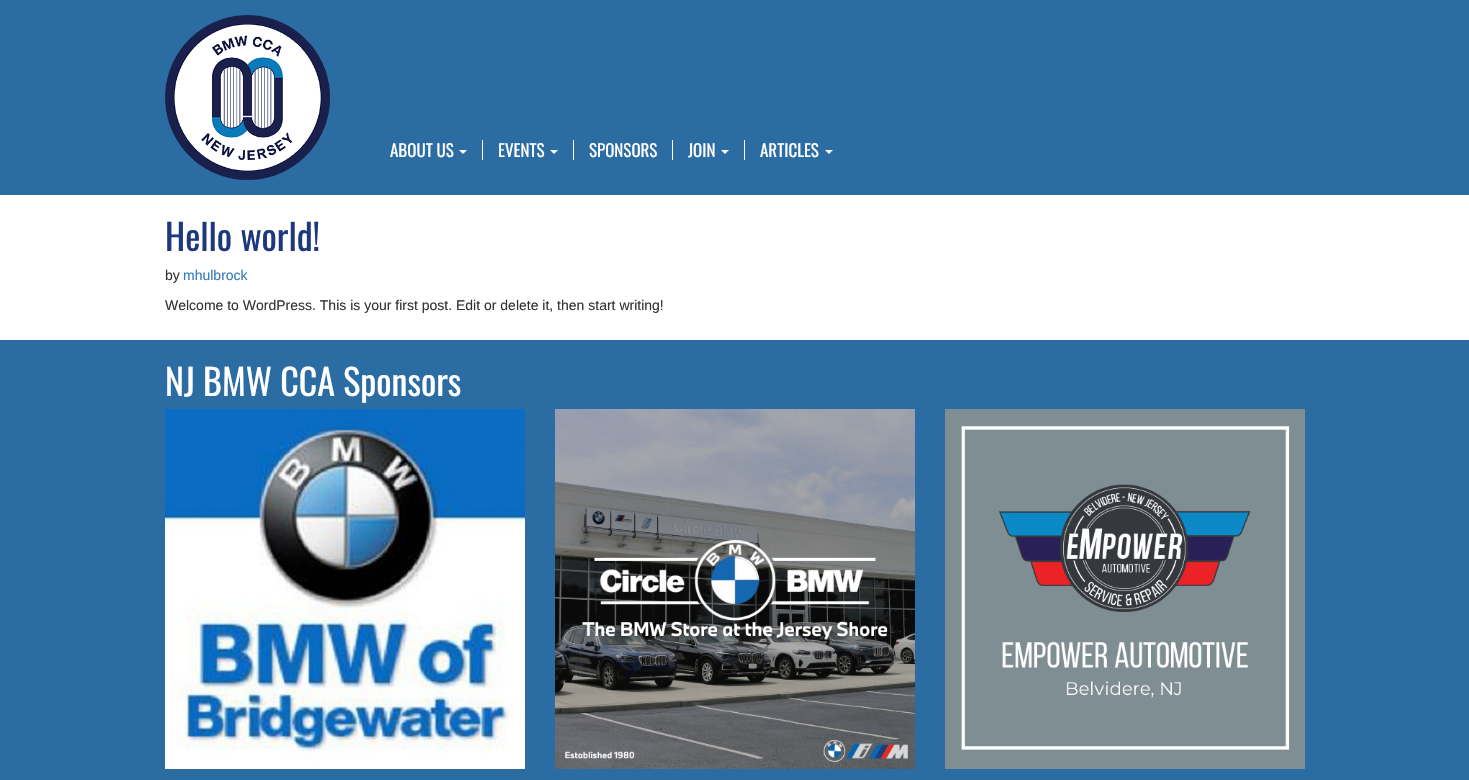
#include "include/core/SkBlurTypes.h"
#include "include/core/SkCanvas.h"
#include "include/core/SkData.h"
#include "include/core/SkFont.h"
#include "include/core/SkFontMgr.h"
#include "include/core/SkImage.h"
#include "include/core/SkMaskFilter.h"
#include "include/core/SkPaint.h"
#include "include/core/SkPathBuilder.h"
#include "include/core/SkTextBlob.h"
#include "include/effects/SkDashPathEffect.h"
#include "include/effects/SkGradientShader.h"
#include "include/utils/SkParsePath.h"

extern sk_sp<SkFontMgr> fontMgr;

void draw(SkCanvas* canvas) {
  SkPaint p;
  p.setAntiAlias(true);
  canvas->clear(SK_ColorWHITE);
  p.setColor(SkColorSetRGB(43, 108, 163));
  canvas->drawRect(SkRect::MakeLTRB(0, 0, 1469, 195), p);
  canvas->drawImageRect(SkImages::DeferredFromEncodedData(SkData::MakeFromFileName("images/1.png")), SkRect::MakeLTRB(165, 15, 330, 180), SkSamplingOptions());
  p.setColor(SK_ColorWHITE);
  canvas->drawRect(SkRect::MakeLTRB(482, 140, 483, 160), p);
  canvas->drawPath(SkPathBuilder().moveTo(459, 150).lineTo(467, 150).lineTo(463, 154).close().detach(), p);
  canvas->drawRect(SkRect::MakeLTRB(573, 140, 574, 160), p);
  canvas->drawPath(SkPathBuilder().moveTo(550, 150).lineTo(558, 150).lineTo(554, 154).close().detach(), p);
  canvas->drawRect(SkRect::MakeLTRB(672, 140, 673, 160), p);
  canvas->drawRect(SkRect::MakeLTRB(744, 140, 745, 160), p);
  canvas->drawPath(SkPathBuilder().moveTo(721, 150).lineTo(729, 150).lineTo(725, 154).close().detach(), p);
  canvas->drawPath(SkPathBuilder().moveTo(825, 150).lineTo(833, 150).lineTo(829, 154).close().detach(), p);
  p.setColor(SkColorSetRGB(43, 108, 163));
  canvas->drawRect(SkRect::MakeLTRB(0, 340, 1469, 780), p);
  canvas->drawImageRect(SkImages::DeferredFromEncodedData(SkData::MakeFromFileName("images/2.png")), SkRect::MakeLTRB(165, 409, 525, 769), SkSamplingOptions());
  canvas->drawImageRect(SkImages::DeferredFromEncodedData(SkData::MakeFromFileName("images/3.png")), SkRect::MakeLTRB(555, 409, 915, 769), SkSamplingOptions());
  canvas->drawImageRect(SkImages::DeferredFromEncodedData(SkData::MakeFromFileName("images/4.png")), SkRect::MakeLTRB(945, 409, 1305, 769), SkSamplingOptions());
  SkFont font1(fontMgr->matchFamilyStyle("Oswald", SkFontStyle::Normal()), 17);
  font1.setSubpixel(true);
  p.setColor(SK_ColorWHITE);
  canvas->drawString("ABOUT US", 390, 157, font1, p);
  canvas->drawString("EVENTS", 498, 157, font1, p);
  canvas->drawString("SPONSORS", 589, 157, font1, p);
  canvas->drawString("JOIN", 688, 157, font1, p);
  canvas->drawString("ARTICLES", 760, 157, font1, p);
  SkFont font2(fontMgr->matchFamilyStyle("Oswald", SkFontStyle::Normal()), 36);
  font2.setSubpixel(true);
  p.setColor(SkColorSetRGB(29, 56, 125));
  canvas->drawString("Hello world!", 165, 251, font2, p);
  SkFont font3(fontMgr->matchFamilyStyle("Liberation Sans", SkFontStyle::Normal()), 14);
  font3.setSubpixel(true);
  p.setColor(SkColorSetRGB(51, 51, 51));
  canvas->drawString("by", 165, 280, font3, p);
  p.setColor(SkColorSetRGB(51, 122, 183));
  canvas->drawString("mhulbrock", 183, 280, font3, p);
  p.setColor(SkColorSetRGB(51, 51, 51));
  canvas->drawString("Welcome to WordPress. This is your first post. Edit or delete it, then start writing!", 165, 310, font3, p);
  p.setColor(SK_ColorWHITE);
  canvas->drawString("NJ BMW CCA Sponsors", 165, 396, font2, p);
}
